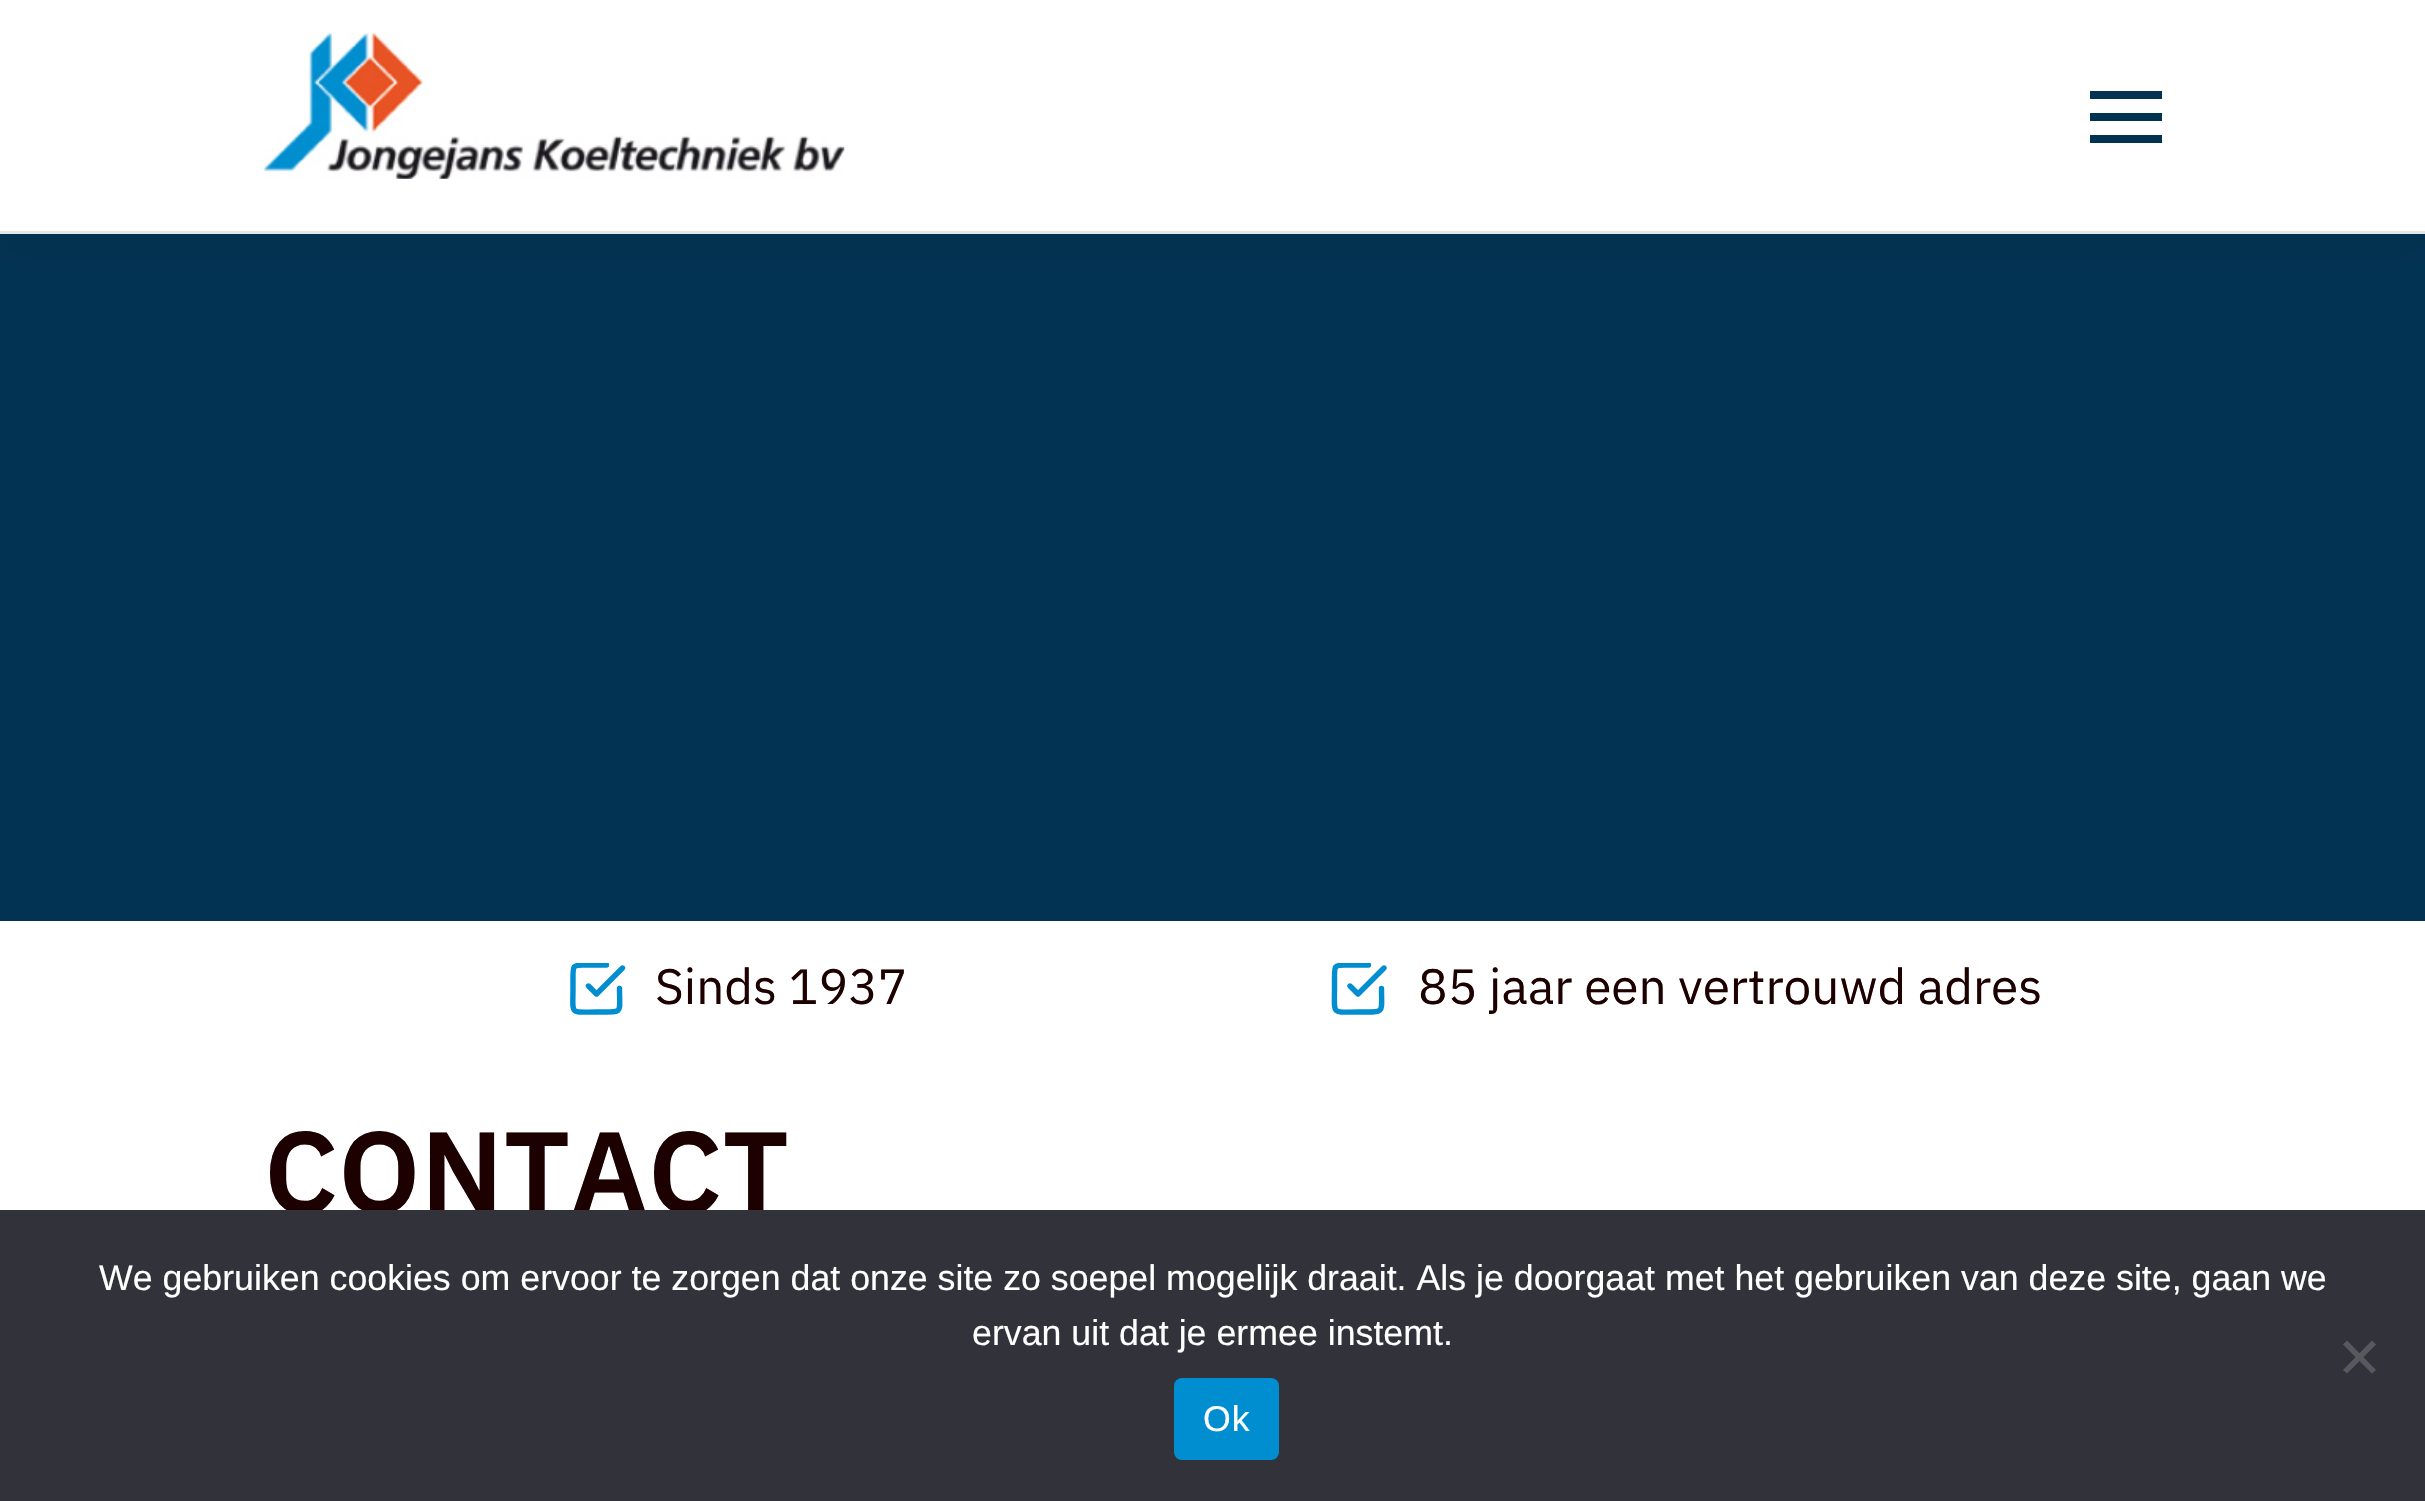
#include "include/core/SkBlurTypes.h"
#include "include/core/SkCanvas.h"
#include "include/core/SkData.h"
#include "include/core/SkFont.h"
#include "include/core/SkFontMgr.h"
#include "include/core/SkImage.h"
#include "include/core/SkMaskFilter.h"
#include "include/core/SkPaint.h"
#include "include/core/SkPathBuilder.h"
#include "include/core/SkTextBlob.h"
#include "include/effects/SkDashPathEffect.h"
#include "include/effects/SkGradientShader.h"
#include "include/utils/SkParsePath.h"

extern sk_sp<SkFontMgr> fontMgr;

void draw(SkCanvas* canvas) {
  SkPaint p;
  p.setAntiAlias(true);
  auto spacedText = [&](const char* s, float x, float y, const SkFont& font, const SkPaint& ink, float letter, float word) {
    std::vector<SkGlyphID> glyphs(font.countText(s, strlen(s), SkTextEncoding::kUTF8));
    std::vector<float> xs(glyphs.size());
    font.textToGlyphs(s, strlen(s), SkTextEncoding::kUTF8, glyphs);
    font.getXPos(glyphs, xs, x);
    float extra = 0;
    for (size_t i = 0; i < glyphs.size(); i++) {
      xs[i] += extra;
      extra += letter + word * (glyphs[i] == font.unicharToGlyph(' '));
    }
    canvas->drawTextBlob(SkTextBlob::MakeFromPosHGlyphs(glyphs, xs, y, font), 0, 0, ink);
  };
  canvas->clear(SK_ColorWHITE);
  p.setColor(SkColorSetRGB(3, 51, 83));
  canvas->drawRect(SkRect::MakeLTRB(0, 234, 2425, 921), p);
  p.setColor(SkColorSetARGB(13, 0, 0, 0));
  p.setMaskFilter(SkMaskFilter::MakeBlur(kNormal_SkBlurStyle, 20.5f));
  canvas->drawRect(SkRect::MakeLTRB(0, 14, 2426, 248), p);
  p.setMaskFilter(nullptr);
  p.setColor(SK_ColorWHITE);
  canvas->drawRect(SkRect::MakeLTRB(0, 0, 2425, 231), p);
  p.setColor(SkColorSetRGB(230, 230, 230));
  canvas->drawRect(SkRect::MakeLTRB(0, 231, 2425, 234), p);
  canvas->drawImageRect(SkImages::DeferredFromEncodedData(SkData::MakeFromFileName("images/1.png")), SkRect::MakeLTRB(264, 32, 845, 179), SkSamplingOptions());
  p.setColor(SkColorSetRGB(3, 51, 83));
  canvas->drawRect(SkRect::MakeLTRB(2090, 113, 2162, 121), p);
  canvas->drawRect(SkRect::MakeLTRB(2090, 91, 2162, 99), p);
  canvas->drawRect(SkRect::MakeLTRB(2090, 135, 2162, 143), p);
  p.setStyle(SkPaint::kStroke_Style);
  p.setStrokeWidth(5.4f);
  p.setStrokeCap(SkPaint::kRound_Cap);
  p.setStrokeJoin(SkPaint::kRound_Join);
  p.setColor(SkColorSetRGB(0, 142, 209));
  canvas->drawPath(SkPathBuilder().moveTo(588.5f, 986).lineTo(596.5f, 994).lineTo(622.5f, 968).detach(), p);
  canvas->save();
  canvas->clipRect(SkRect::MakeLTRB(569, 963, 627, 1015));
  canvas->drawPath(SkPathBuilder().moveTo(619.5f, 988.5f).cubicTo(619.5f, 1014.5f, 624, 1012, 596.5f, 1012).cubicTo(569, 1012, 573, 1015.5f, 573, 988.5f).lineTo(573, 976.5f).cubicTo(573, 966.5f, 573, 965, 583, 965).lineTo(606.5f, 965).detach(), p);
  canvas->restore();
  canvas->drawPath(SkPathBuilder().moveTo(1350, 986).lineTo(1358, 994).lineTo(1384, 968).detach(), p);
  canvas->save();
  canvas->clipRect(SkRect::MakeLTRB(1331, 963, 1389, 1015));
  canvas->drawPath(SkPathBuilder().moveTo(1381.5f, 988.5f).cubicTo(1381.5f, 1014.5f, 1385.5f, 1012, 1358, 1012).cubicTo(1331, 1012, 1334.5f, 1015.5f, 1334.5f, 988.5f).lineTo(1334.5f, 976.5f).cubicTo(1334.5f, 966.5f, 1334.5f, 965, 1344.5f, 965).lineTo(1368.5f, 965).detach(), p);
  canvas->restore();
  SkFont font1(fontMgr->matchFamilyStyle("IBM Plex Sans Arabic", SkFontStyle::Normal()), 49.5f);
  font1.setSubpixel(true);
  p.setStyle(SkPaint::kFill_Style);
  p.setColor(SkColorSetRGB(29, 0, 0));
  canvas->drawString("Sinds 1937", 655, 1004, font1, p);
  canvas->drawString("85 jaar een vertrouwd adres", 1418, 1004, font1, p);
  SkFont font2(fontMgr->matchFamilyStyle("IBM Plex Sans Arabic", SkFontStyle(600, SkFontStyle::kNormal_Width, SkFontStyle::kUpright_Slant)), 115.5f);
  font2.setSubpixel(true);
  canvas->drawString("CONTACT", 264, 1213, font2, p);
  p.setColor(SkColorSetRGB(50, 50, 58));
  canvas->drawRect(SkRect::MakeLTRB(0, 1210, 2425, 1501), p);
  SkFont font3(fontMgr->matchFamilyStyle("Liberation Sans", SkFontStyle::Normal()), 35.75f);
  font3.setSubpixel(true);
  p.setColor(SK_ColorWHITE);
  canvas->drawString("We gebruiken cookies om ervoor te zorgen dat onze site zo soepel mogelijk draait. Als je doorgaat met het gebruiken van deze site, gaan we", 99, 1290, font3, p);
  canvas->drawString("ervan uit dat je ermee instemt.", 972, 1345, font3, p);
  p.setColor(SkColorSetRGB(89, 89, 93));
  canvas->drawPath(SkPathBuilder().moveTo(2372, 1340.5f).lineTo(2376, 1344.5f).lineTo(2347, 1373.5f).lineTo(2343, 1370).close().detach(), p);
  canvas->drawPath(SkPathBuilder().moveTo(2343, 1344.5f).lineTo(2347, 1340.5f).lineTo(2376, 1370).lineTo(2372, 1373.5f).close().detach(), p);
  p.setColor(SkColorSetRGB(0, 142, 209));
  canvas->drawRoundRect(SkRect::MakeLTRB(1174, 1378, 1279, 1460), 8, 8, p);
  p.setColor(SK_ColorWHITE);
  spacedText("Ok", 1203, 1431, font3, p, 1, 0);
}
